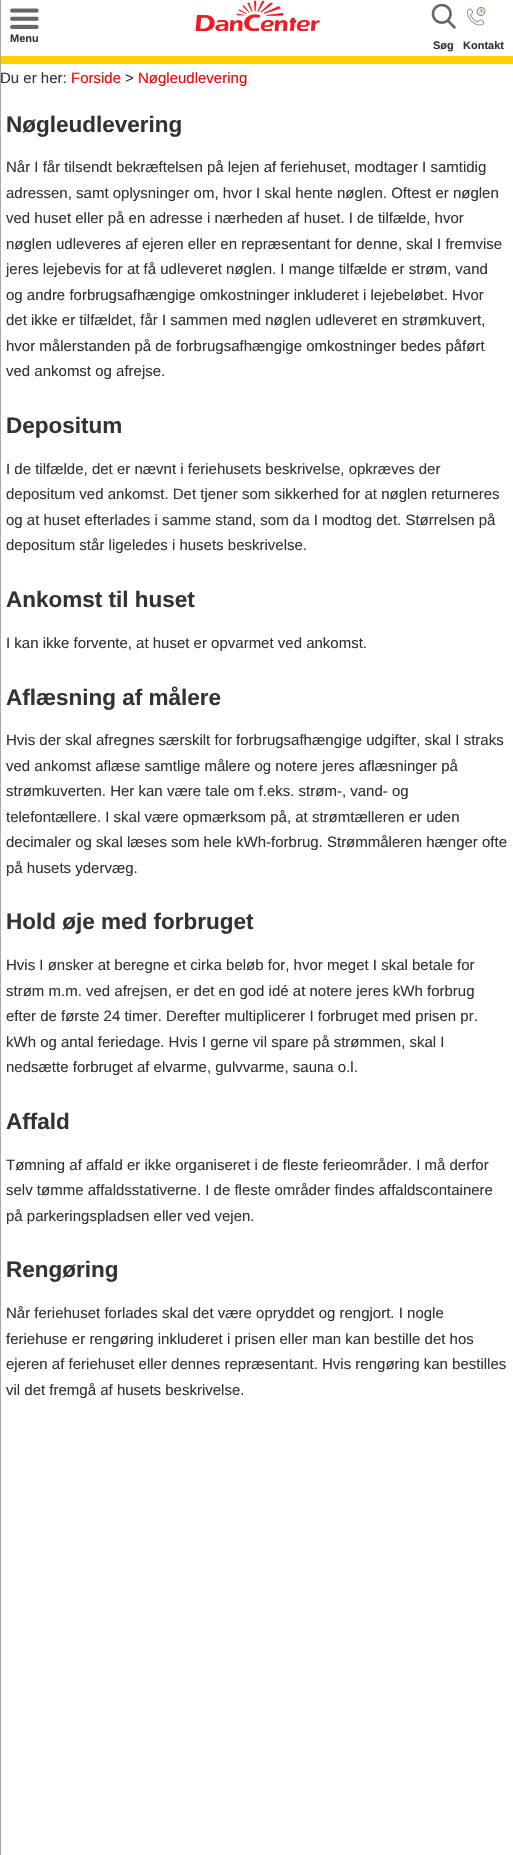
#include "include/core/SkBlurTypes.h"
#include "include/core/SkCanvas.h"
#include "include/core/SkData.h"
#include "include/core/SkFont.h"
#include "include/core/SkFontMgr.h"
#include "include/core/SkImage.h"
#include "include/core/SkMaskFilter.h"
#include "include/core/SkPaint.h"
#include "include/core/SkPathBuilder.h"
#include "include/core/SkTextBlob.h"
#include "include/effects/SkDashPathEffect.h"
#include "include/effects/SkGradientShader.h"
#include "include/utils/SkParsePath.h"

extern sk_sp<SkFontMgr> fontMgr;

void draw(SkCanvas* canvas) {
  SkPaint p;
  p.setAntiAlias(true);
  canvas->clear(SK_ColorWHITE);
  p.setColor(SkColorSetRGB(255, 209, 0));
  canvas->drawRect(SkRect::MakeLTRB(0, 56, 513, 64), p);
  p.setColor(SkColorSetRGB(170, 170, 170));
  canvas->drawRect(SkRect::MakeLTRB(0, 0, 1, 1855), p);
  canvas->drawImageRect(SkImages::DeferredFromEncodedData(SkData::MakeFromFileName("images/1.png")), SkRect::MakeLTRB(195, 0, 320, 31), SkSamplingOptions());
  canvas->drawImageRect(SkImages::DeferredFromEncodedData(SkData::MakeFromFileName("images/2.png")), SkRect::MakeLTRB(10, 8, 39, 29), SkSamplingOptions());
  canvas->drawImageRect(SkImages::DeferredFromEncodedData(SkData::MakeFromFileName("images/3.png")), SkRect::MakeLTRB(431, 4, 456, 29), SkSamplingOptions());
  canvas->drawImageRect(SkImages::DeferredFromEncodedData(SkData::MakeFromFileName("images/4.png")), SkRect::MakeLTRB(467, 7, 486, 26), SkSamplingOptions());
  SkFont font1(fontMgr->matchFamilyStyle("Liberation Sans", SkFontStyle::Bold()), 11);
  font1.setSubpixel(true);
  p.setColor(SkColorSetRGB(51, 51, 51));
  canvas->drawString("Menu", 10, 42, font1, p);
  canvas->drawString("Søg", 433, 49, font1, p);
  canvas->drawString("Kontakt", 463, 49, font1, p);
  SkFont font2(fontMgr->matchFamilyStyle("Liberation Sans", SkFontStyle::Normal()), 15);
  font2.setSubpixel(true);
  canvas->drawString("Du er her:", 0, 83, font2, p);
  p.setColor(SkColorSetRGB(255, 0, 0));
  canvas->drawString("Forside", 71, 83, font2, p);
  p.setColor(SkColorSetRGB(51, 51, 51));
  canvas->drawString(">", 125, 83, font2, p);
  p.setColor(SkColorSetRGB(255, 0, 0));
  canvas->drawString("Nøgleudlevering", 138, 83, font2, p);
  SkFont font3(fontMgr->matchFamilyStyle("Liberation Sans", SkFontStyle::Bold()), 22.5f);
  font3.setSubpixel(true);
  p.setColor(SkColorSetRGB(51, 51, 51));
  canvas->drawString("Nøgleudlevering", 6, 132, font3, p);
  canvas->drawString("Når I får tilsendt bekræftelsen på lejen af feriehuset, modtager I samtidig", 6, 172, font2, p);
  canvas->drawString("adressen, samt oplysninger om, hvor I skal hente nøglen. Oftest er nøglen", 6, 198, font2, p);
  canvas->drawString("ved huset eller på en adresse i nærheden af huset. I de tilfælde, hvor", 6, 223, font2, p);
  canvas->drawString("nøglen udleveres af ejeren eller en repræsentant for denne, skal I fremvise", 6, 249, font2, p);
  canvas->drawString("jeres lejebevis for at få udleveret nøglen. I mange tilfælde er strøm, vand", 6, 274, font2, p);
  canvas->drawString("og andre forbrugsafhængige omkostninger inkluderet i lejebeløbet. Hvor", 6, 300, font2, p);
  canvas->drawString("det ikke er tilfældet, får I sammen med nøglen udleveret en strømkuvert,", 6, 325, font2, p);
  canvas->drawString("hvor målerstanden på de forbrugsafhængige omkostninger bedes påført", 6, 351, font2, p);
  canvas->drawString("ved ankomst og afrejse.", 6, 376, font2, p);
  canvas->drawString("Depositum", 6, 433, font3, p);
  canvas->drawString("I de tilfælde, det er nævnt i feriehusets beskrivelse, opkræves der", 6, 474, font2, p);
  canvas->drawString("depositum ved ankomst. Det tjener som sikkerhed for at nøglen returneres", 6, 499, font2, p);
  canvas->drawString("og at huset efterlades i samme stand, som da I modtog det. Størrelsen på", 6, 525, font2, p);
  canvas->drawString("depositum står ligeledes i husets beskrivelse.", 6, 550, font2, p);
  canvas->drawString("Ankomst til huset", 6, 607, font3, p);
  canvas->drawString("I kan ikke forvente, at huset er opvarmet ved ankomst.", 6, 648, font2, p);
  canvas->drawString("Aflæsning af målere", 6, 705, font3, p);
  canvas->drawString("Hvis der skal afregnes særskilt for forbrugsafhængige udgifter, skal I straks", 6, 745, font2, p);
  canvas->drawString("ved ankomst aflæse samtlige målere og notere jeres aflæsninger på", 6, 771, font2, p);
  canvas->drawString("strømkuverten. Her kan være tale om f.eks. strøm-, vand- og", 6, 796, font2, p);
  canvas->drawString("telefontællere. I skal være opmærksom på, at strømtælleren er uden", 6, 822, font2, p);
  canvas->drawString("decimaler og skal læses som hele kWh-forbrug. Strømmåleren hænger ofte", 6, 847, font2, p);
  canvas->drawString("på husets ydervæg.", 6, 873, font2, p);
  canvas->drawString("Hold øje med forbruget", 6, 929, font3, p);
  canvas->drawString("Hvis I ønsker at beregne et cirka beløb for, hvor meget I skal betale for", 6, 970, font2, p);
  canvas->drawString("strøm m.m. ved afrejsen, er det en god idé at notere jeres kWh forbrug", 6, 996, font2, p);
  canvas->drawString("efter de første 24 timer. Derefter multiplicerer I forbruget med prisen pr.", 6, 1021, font2, p);
  canvas->drawString("kWh og antal feriedage. Hvis I gerne vil spare på strømmen, skal I", 6, 1047, font2, p);
  canvas->drawString("nedsætte forbruget af elvarme, gulvvarme, sauna o.l.", 6, 1072, font2, p);
  canvas->drawString("Affald", 6, 1129, font3, p);
  canvas->drawString("Tømning af affald er ikke organiseret i de fleste ferieområder. I må derfor", 6, 1170, font2, p);
  canvas->drawString("selv tømme affaldsstativerne. I de fleste områder findes affaldscontainere", 6, 1195, font2, p);
  canvas->drawString("på parkeringspladsen eller ved vejen.", 6, 1221, font2, p);
  canvas->drawString("Rengøring", 6, 1277, font3, p);
  canvas->drawString("Når feriehuset forlades skal det være opryddet og rengjort. I nogle", 6, 1318, font2, p);
  canvas->drawString("feriehuse er rengøring inkluderet i prisen eller man kan bestille det hos", 6, 1344, font2, p);
  canvas->drawString("ejeren af feriehuset eller dennes repræsentant. Hvis rengøring kan bestilles", 6, 1369, font2, p);
  canvas->drawString("vil det fremgå af husets beskrivelse.", 6, 1395, font2, p);
}
